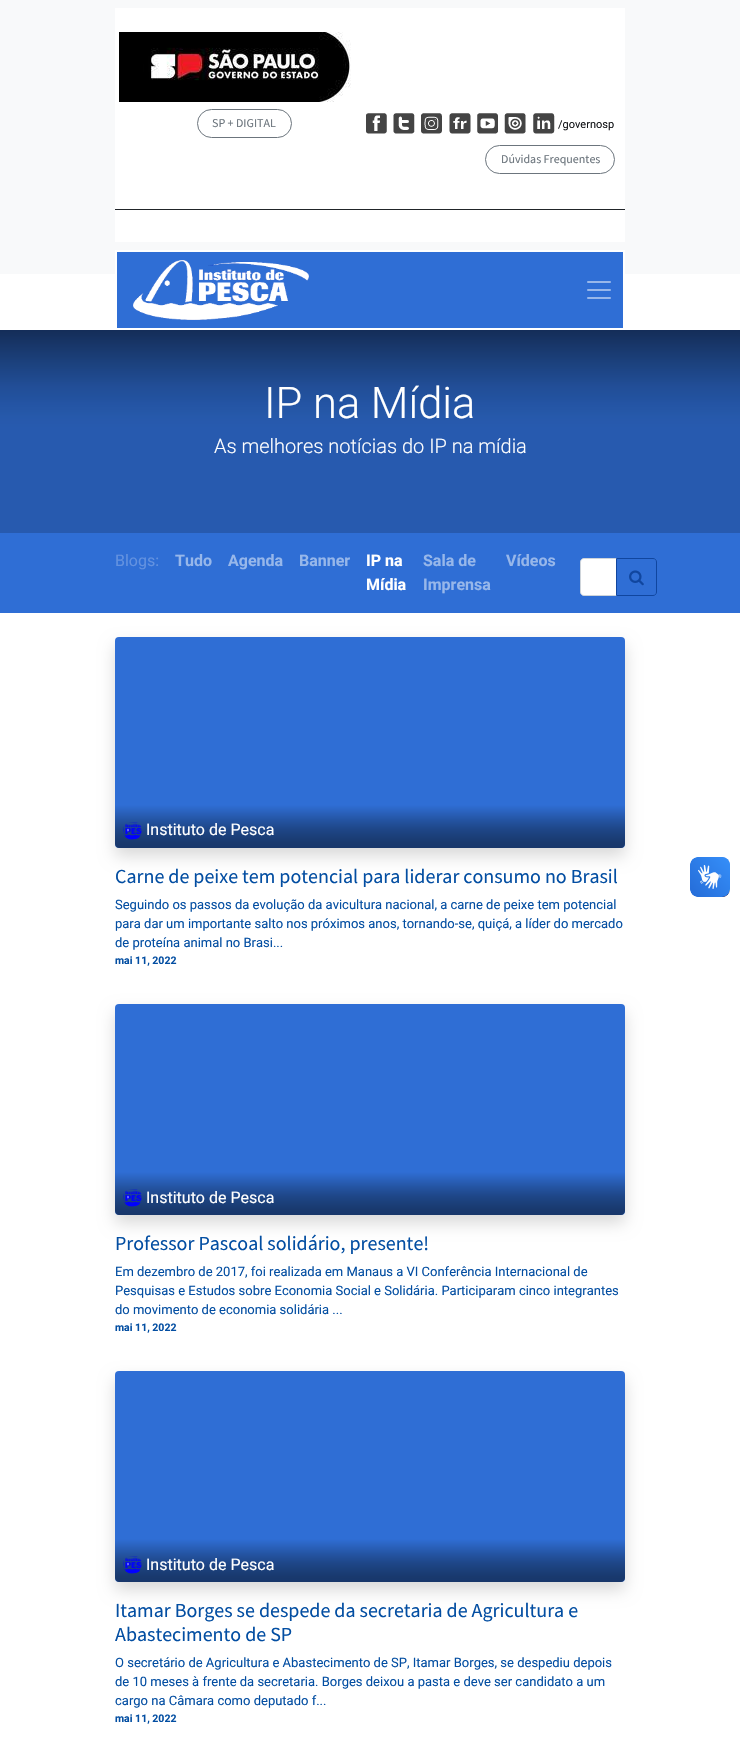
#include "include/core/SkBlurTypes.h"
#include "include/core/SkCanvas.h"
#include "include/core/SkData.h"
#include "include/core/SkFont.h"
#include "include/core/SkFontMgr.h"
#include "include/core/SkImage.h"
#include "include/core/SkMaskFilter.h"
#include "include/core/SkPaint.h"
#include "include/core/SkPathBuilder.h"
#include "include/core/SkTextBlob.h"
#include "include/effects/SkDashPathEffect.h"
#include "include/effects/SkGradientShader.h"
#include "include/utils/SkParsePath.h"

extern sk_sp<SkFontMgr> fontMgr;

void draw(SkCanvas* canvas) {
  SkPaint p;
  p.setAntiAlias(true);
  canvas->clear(SK_ColorWHITE);
  p.setColor(SkColorSetRGB(248, 249, 250));
  canvas->drawRect(SkRect::MakeLTRB(0, 0, 740, 274), p);
  p.setColor(SK_ColorWHITE);
  canvas->drawRect(SkRect::MakeLTRB(115, 8, 625, 242), p);
  canvas->drawImageRect(SkImages::DeferredFromEncodedData(SkData::MakeFromFileName("images/1.png")), SkRect::MakeLTRB(119, 32, 351, 102), SkSamplingOptions());
  p.setStyle(SkPaint::kStroke_Style);
  p.setStrokeWidth(1);
  p.setColor(SkColorSetRGB(108, 117, 125));
  canvas->drawRoundRect(SkRect::MakeLTRB(197.5f, 109.5f, 291.5f, 137.5f), 14, 14, p);
  canvas->drawImageRect(SkImages::DeferredFromEncodedData(SkData::MakeFromFileName("images/2.png")), SkRect::MakeLTRB(366, 113, 387, 134), SkSamplingOptions());
  canvas->drawImageRect(SkImages::DeferredFromEncodedData(SkData::MakeFromFileName("images/3.png")), SkRect::MakeLTRB(393, 113, 415, 134), SkSamplingOptions());
  canvas->drawImageRect(SkImages::DeferredFromEncodedData(SkData::MakeFromFileName("images/4.png")), SkRect::MakeLTRB(421, 113, 442, 134), SkSamplingOptions());
  canvas->drawImageRect(SkImages::DeferredFromEncodedData(SkData::MakeFromFileName("images/5.png")), SkRect::MakeLTRB(449, 113, 471, 134), SkSamplingOptions());
  canvas->drawImageRect(SkImages::DeferredFromEncodedData(SkData::MakeFromFileName("images/6.png")), SkRect::MakeLTRB(477, 113, 498, 134), SkSamplingOptions());
  canvas->drawImageRect(SkImages::DeferredFromEncodedData(SkData::MakeFromFileName("images/7.png")), SkRect::MakeLTRB(504, 113, 526, 134), SkSamplingOptions());
  canvas->drawImageRect(SkImages::DeferredFromEncodedData(SkData::MakeFromFileName("images/8.png")), SkRect::MakeLTRB(533, 113, 555, 134), SkSamplingOptions());
  canvas->drawRoundRect(SkRect::MakeLTRB(485.5f, 145.5f, 614.5f, 173.5f), 14, 14, p);
  p.setStyle(SkPaint::kFill_Style);
  p.setColor(SkColorSetRGB(33, 37, 41));
  canvas->drawRect(SkRect::MakeLTRB(115, 209, 625, 210), p);
  p.setColor(SkColorSetRGB(47, 110, 213));
  canvas->drawRect(SkRect::MakeLTRB(116, 251, 624, 329), p);
  p.setStyle(SkPaint::kStroke_Style);
  p.setStrokeWidth(2);
  p.setColor(SK_ColorWHITE);
  canvas->drawRect(SkRect::MakeLTRB(116, 251, 624, 329), p);
  canvas->drawImageRect(SkImages::DeferredFromEncodedData(SkData::MakeFromFileName("images/9.png")), SkRect::MakeLTRB(133, 260, 309, 320), SkSamplingOptions());
  canvas->drawImageRect(SkImages::DeferredFromEncodedData(SkData::MakeFromFileName("images/10.png")), SkRect::MakeLTRB(587, 281, 611, 299), SkSamplingOptions());
  p.setStyle(SkPaint::kFill_Style);
  p.setColor(SkColorSetRGB(39, 90, 175));
  canvas->drawRect(SkRect::MakeLTRB(0, 431, 740, 533), p);
  {
    const SkColor colors[] = {SkColorSetRGB(20, 45, 88), SkColorSetRGB(25, 57, 110), SkColorSetRGB(28, 66, 127), SkColorSetRGB(31, 73, 141), SkColorSetRGB(34, 78, 151), SkColorSetRGB(34, 81, 157), SkColorSetRGB(36, 84, 164), SkColorSetRGB(37, 87, 167), SkColorSetRGB(38, 89, 171), SkColorSetRGB(39, 89, 173), SkColorSetRGB(39, 90, 174), SkColorSetRGB(39, 90, 175), SkColorSetRGB(39, 90, 175)};
    const float stops[] = {0, 0.19f, 0.34f, 0.47f, 0.56f, 0.65f, 0.73f, 0.8f, 0.86f, 0.91f, 0.95f, 0.98f, 1};
    const SkPoint ends[] = {{370, 330}, {370, 431}};
    p.setShader(SkGradientShader::MakeLinear(ends, colors, stops, 13, SkTileMode::kClamp));
    p.setAlpha(255);
  }
  canvas->drawRect(SkRect::MakeLTRB(0, 330, 740, 431), p);
  p.setShader(nullptr);
  p.setColor(SkColorSetRGB(47, 110, 213));
  canvas->drawRect(SkRect::MakeLTRB(0, 533, 740, 613), p);
  p.setColor(SK_ColorWHITE);
  canvas->drawPath(SkPathBuilder().moveTo(584, 558.5f).lineTo(616.5f, 558.5f).lineTo(616.5f, 595.5f).lineTo(584, 595.5f).cubicTo(582, 595.5f, 580.5f, 594, 580.5f, 592).lineTo(580.5f, 562).cubicTo(580.5f, 560, 582, 558.5f, 584, 558.5f).close().detach(), p);
  p.setStyle(SkPaint::kStroke_Style);
  p.setStrokeWidth(1);
  p.setColor(SkColorSetRGB(206, 212, 218));
  canvas->drawPath(SkPathBuilder().moveTo(584, 558.5f).lineTo(616.5f, 558.5f).lineTo(616.5f, 595.5f).lineTo(584, 595.5f).cubicTo(582, 595.5f, 580.5f, 594, 580.5f, 592).lineTo(580.5f, 562).cubicTo(580.5f, 560, 582, 558.5f, 584, 558.5f).close().detach(), p);
  p.setColor(SkColorSetRGB(16, 70, 159));
  canvas->drawPath(SkPathBuilder().moveTo(616.5f, 558.5f).lineTo(653, 558.5f).cubicTo(655, 558.5f, 656.5f, 560, 656.5f, 562).lineTo(656.5f, 592).cubicTo(656.5f, 594, 655, 595.5f, 653, 595.5f).lineTo(616.5f, 595.5f).close().detach(), p);
  canvas->drawImageRect(SkImages::DeferredFromEncodedData(SkData::MakeFromFileName("images/11.png")), SkRect::MakeLTRB(629, 570, 644, 586), SkSamplingOptions());
  p.setStyle(SkPaint::kFill_Style);
  p.setColor(SkColorSetARGB(38, 0, 0, 0));
  p.setMaskFilter(SkMaskFilter::MakeBlur(kNormal_SkBlurStyle, 8));
  canvas->drawRoundRect(SkRect::MakeLTRB(115, 645, 625, 856), 4, 4, p);
  p.setMaskFilter(nullptr);
  p.setColor(SkColorSetRGB(47, 110, 213));
  canvas->drawRoundRect(SkRect::MakeLTRB(115, 637, 625, 848), 4, 4, p);
  {
    const SkColor colors[] = {SkColorSetARGB(0, 0, 0, 0), SkColorSetARGB(33, 0, 0, 0), SkColorSetARGB(59, 0, 0, 0), SkColorSetARGB(79, 0, 0, 0), SkColorSetARGB(92, 0, 0, 0), SkColorSetARGB(102, 0, 0, 0), SkColorSetARGB(110, 0, 0, 0), SkColorSetARGB(117, 0, 0, 0), SkColorSetARGB(122, 0, 0, 0), SkColorSetARGB(125, 0, 0, 0), SkColorSetARGB(125, 0, 0, 0), SkColorSetARGB(128, 0, 0, 0), SkColorSetARGB(128, 0, 0, 0)};
    const float stops[] = {0, 0.19f, 0.34f, 0.47f, 0.56f, 0.65f, 0.73f, 0.8f, 0.86f, 0.91f, 0.95f, 0.98f, 1};
    const SkPoint ends[] = {{370, 805}, {370, 848}};
    p.setShader(SkGradientShader::MakeLinear(ends, colors, stops, 13, SkTileMode::kClamp));
    p.setAlpha(255);
  }
  canvas->drawPath(SkPathBuilder().moveTo(115, 805).lineTo(625, 805).lineTo(625, 844).cubicTo(625, 846, 623, 848, 621, 848).lineTo(119, 848).cubicTo(117, 848, 115, 846, 115, 844).close().detach(), p);
  canvas->drawImageRect(SkImages::DeferredFromEncodedData(SkData::MakeFromFileName("images/12.png")), SkRect::MakeLTRB(123, 822, 142, 840), SkSamplingOptions());
  p.setShader(nullptr);
  p.setColor(SkColorSetARGB(38, 0, 0, 0));
  p.setMaskFilter(SkMaskFilter::MakeBlur(kNormal_SkBlurStyle, 8));
  canvas->drawRoundRect(SkRect::MakeLTRB(115, 1012, 625, 1223), 4, 4, p);
  p.setMaskFilter(nullptr);
  p.setColor(SkColorSetRGB(47, 110, 213));
  canvas->drawRoundRect(SkRect::MakeLTRB(115, 1004, 625, 1215), 4, 4, p);
  {
    const SkColor colors[] = {SkColorSetARGB(0, 0, 0, 0), SkColorSetARGB(33, 0, 0, 0), SkColorSetARGB(59, 0, 0, 0), SkColorSetARGB(79, 0, 0, 0), SkColorSetARGB(92, 0, 0, 0), SkColorSetARGB(102, 0, 0, 0), SkColorSetARGB(110, 0, 0, 0), SkColorSetARGB(117, 0, 0, 0), SkColorSetARGB(122, 0, 0, 0), SkColorSetARGB(125, 0, 0, 0), SkColorSetARGB(125, 0, 0, 0), SkColorSetARGB(128, 0, 0, 0), SkColorSetARGB(128, 0, 0, 0)};
    const float stops[] = {0, 0.19f, 0.34f, 0.47f, 0.56f, 0.65f, 0.73f, 0.8f, 0.86f, 0.91f, 0.95f, 0.98f, 1};
    const SkPoint ends[] = {{370, 1172}, {370, 1215}};
    p.setShader(SkGradientShader::MakeLinear(ends, colors, stops, 13, SkTileMode::kClamp));
    p.setAlpha(255);
  }
  canvas->drawPath(SkPathBuilder().moveTo(115, 1172).lineTo(625, 1172).lineTo(625, 1211).cubicTo(625, 1213, 623, 1215, 621, 1215).lineTo(119, 1215).cubicTo(117, 1215, 115, 1213, 115, 1211).close().detach(), p);
  canvas->drawImageRect(SkImages::DeferredFromEncodedData(SkData::MakeFromFileName("images/12.png")), SkRect::MakeLTRB(123, 1189, 142, 1207), SkSamplingOptions());
  p.setShader(nullptr);
  p.setColor(SkColorSetARGB(38, 0, 0, 0));
  p.setMaskFilter(SkMaskFilter::MakeBlur(kNormal_SkBlurStyle, 8));
  canvas->drawRoundRect(SkRect::MakeLTRB(115, 1379, 625, 1590), 4, 4, p);
  p.setMaskFilter(nullptr);
  p.setColor(SkColorSetRGB(47, 110, 213));
  canvas->drawRoundRect(SkRect::MakeLTRB(115, 1371, 625, 1582), 4, 4, p);
  {
    const SkColor colors[] = {SkColorSetARGB(0, 0, 0, 0), SkColorSetARGB(33, 0, 0, 0), SkColorSetARGB(59, 0, 0, 0), SkColorSetARGB(79, 0, 0, 0), SkColorSetARGB(92, 0, 0, 0), SkColorSetARGB(102, 0, 0, 0), SkColorSetARGB(110, 0, 0, 0), SkColorSetARGB(117, 0, 0, 0), SkColorSetARGB(122, 0, 0, 0), SkColorSetARGB(125, 0, 0, 0), SkColorSetARGB(125, 0, 0, 0), SkColorSetARGB(128, 0, 0, 0), SkColorSetARGB(128, 0, 0, 0)};
    const float stops[] = {0, 0.19f, 0.34f, 0.47f, 0.56f, 0.65f, 0.73f, 0.8f, 0.86f, 0.91f, 0.95f, 0.98f, 1};
    const SkPoint ends[] = {{370, 1539}, {370, 1582}};
    p.setShader(SkGradientShader::MakeLinear(ends, colors, stops, 13, SkTileMode::kClamp));
    p.setAlpha(255);
  }
  canvas->drawPath(SkPathBuilder().moveTo(115, 1539).lineTo(625, 1539).lineTo(625, 1578).cubicTo(625, 1580, 623, 1582, 621, 1582).lineTo(119, 1582).cubicTo(117, 1582, 115, 1580, 115, 1578).close().detach(), p);
  canvas->drawImageRect(SkImages::DeferredFromEncodedData(SkData::MakeFromFileName("images/12.png")), SkRect::MakeLTRB(123, 1556, 142, 1574), SkSamplingOptions());
  canvas->drawImageRect(SkImages::DeferredFromEncodedData(SkData::MakeFromFileName("images/13.png")), SkRect::MakeLTRB(690, 857, 730, 897), SkSamplingOptions());
  canvas->drawImageRect(SkImages::DeferredFromEncodedData(SkData::MakeFromFileName("images/14.png")), SkRect::MakeLTRB(690, 857, 730, 897), SkSamplingOptions());
  SkFont font1(fontMgr->matchFamilyStyle("Source Sans Pro", SkFontStyle::Normal()), 12);
  font1.setSubpixel(true);
  p.setShader(nullptr);
  p.setColor(SkColorSetRGB(108, 117, 125));
  canvas->drawString("SP + DIGITAL", 212, 127, font1, p);
  SkFont font2(fontMgr->matchFamilyStyle("Roboto", SkFontStyle::Normal()), 11);
  font2.setSubpixel(true);
  p.setColor(SkColorSetRGB(22, 24, 27));
  canvas->drawString("/governosp", 558, 128, font2, p);
  p.setColor(SkColorSetRGB(108, 117, 125));
  canvas->drawString("Dúvidas Frequentes", 501, 163, font1, p);
  SkFont font3(fontMgr->matchFamilyStyle("Roboto", SkFontStyle(300, SkFontStyle::kNormal_Width, SkFontStyle::kUpright_Slant)), 43.5f);
  font3.setSubpixel(true);
  p.setColor(SK_ColorWHITE);
  canvas->drawString("IP na Mídia", 264, 418, font3, p);
  SkFont font4(fontMgr->matchFamilyStyle("Roboto", SkFontStyle(300, SkFontStyle::kNormal_Width, SkFontStyle::kUpright_Slant)), 20);
  font4.setSubpixel(true);
  canvas->drawString("As melhores notícias do IP na mídia", 214, 453, font4, p);
  SkFont font5(fontMgr->matchFamilyStyle("Roboto", SkFontStyle::Normal()), 16);
  font5.setSubpixel(true);
  p.setColor(SkColorSetRGB(99, 146, 224));
  canvas->drawString("Blogs:", 115, 566, font5, p);
  SkFont font6(fontMgr->matchFamilyStyle("Roboto", SkFontStyle::Bold()), 16);
  font6.setSubpixel(true);
  p.setColor(SkColorSetRGB(151, 183, 234));
  canvas->drawString("Tudo", 175, 566, font6, p);
  canvas->drawString("Agenda", 228, 566, font6, p);
  canvas->drawString("Banner", 299, 566, font6, p);
  p.setColor(SK_ColorWHITE);
  canvas->drawString("IP na", 366, 566, font6, p);
  canvas->drawString("Mídia", 366, 590, font6, p);
  p.setColor(SkColorSetRGB(151, 183, 234));
  canvas->drawString("Sala de", 423, 566, font6, p);
  canvas->drawString("Imprensa", 423, 590, font6, p);
  canvas->drawString("Vídeos", 506, 566, font6, p);
  p.setColor(SK_ColorWHITE);
  canvas->drawString("Instituto de Pesca", 146, 835, font5, p);
  SkFont font7(fontMgr->matchFamilyStyle("Source Sans Pro", SkFontStyle::Normal()), 20);
  font7.setSubpixel(true);
  p.setColor(SkColorSetRGB(3, 78, 162));
  canvas->drawString("Carne de peixe tem potencial para liderar consumo no Brasil", 115, 883, font7, p);
  SkFont font8(fontMgr->matchFamilyStyle("Roboto", SkFontStyle::Normal()), 13);
  font8.setSubpixel(true);
  canvas->drawString("Seguindo os passos da evolução da avicultura nacional, a carne de peixe tem potencial", 115, 909, font8, p);
  canvas->drawString("para dar um importante salto nos próximos anos, tornando-se, quiçá, a líder do mercado", 115, 928, font8, p);
  canvas->drawString("de proteína animal no Brasi...", 115, 947, font8, p);
  SkFont font9(fontMgr->matchFamilyStyle("Roboto", SkFontStyle::Bold()), 10.5f);
  font9.setSubpixel(true);
  canvas->drawString("mai 11, 2022", 115, 964, font9, p);
  p.setColor(SK_ColorWHITE);
  canvas->drawString("Instituto de Pesca", 146, 1203, font5, p);
  p.setColor(SkColorSetRGB(3, 78, 162));
  canvas->drawString("Professor Pascoal solidário, presente!", 115, 1250, font7, p);
  canvas->drawString("Em dezembro de 2017, foi realizada em Manaus a VI Conferência Internacional de", 115, 1276, font8, p);
  canvas->drawString("Pesquisas e Estudos sobre Economia Social e Solidária. Participaram cinco integrantes", 115, 1295, font8, p);
  canvas->drawString("do movimento de economia solidária ...", 115, 1314, font8, p);
  canvas->drawString("mai 11, 2022", 115, 1331, font9, p);
  p.setColor(SK_ColorWHITE);
  canvas->drawString("Instituto de Pesca", 146, 1570, font5, p);
  p.setColor(SkColorSetRGB(3, 78, 162));
  canvas->drawString("Itamar Borges se despede da secretaria de Agricultura e", 115, 1617, font7, p);
  canvas->drawString("Abastecimento de SP", 115, 1641, font7, p);
  canvas->drawString("O secretário de Agricultura e Abastecimento de SP, Itamar Borges, se despediu depois", 115, 1667, font8, p);
  canvas->drawString("de 10 meses à frente da secretaria. Borges deixou a pasta e deve ser candidato a um", 115, 1686, font8, p);
  canvas->drawString("cargo na Câmara como deputado f...", 115, 1705, font8, p);
  canvas->drawString("mai 11, 2022", 115, 1722, font9, p);
}
